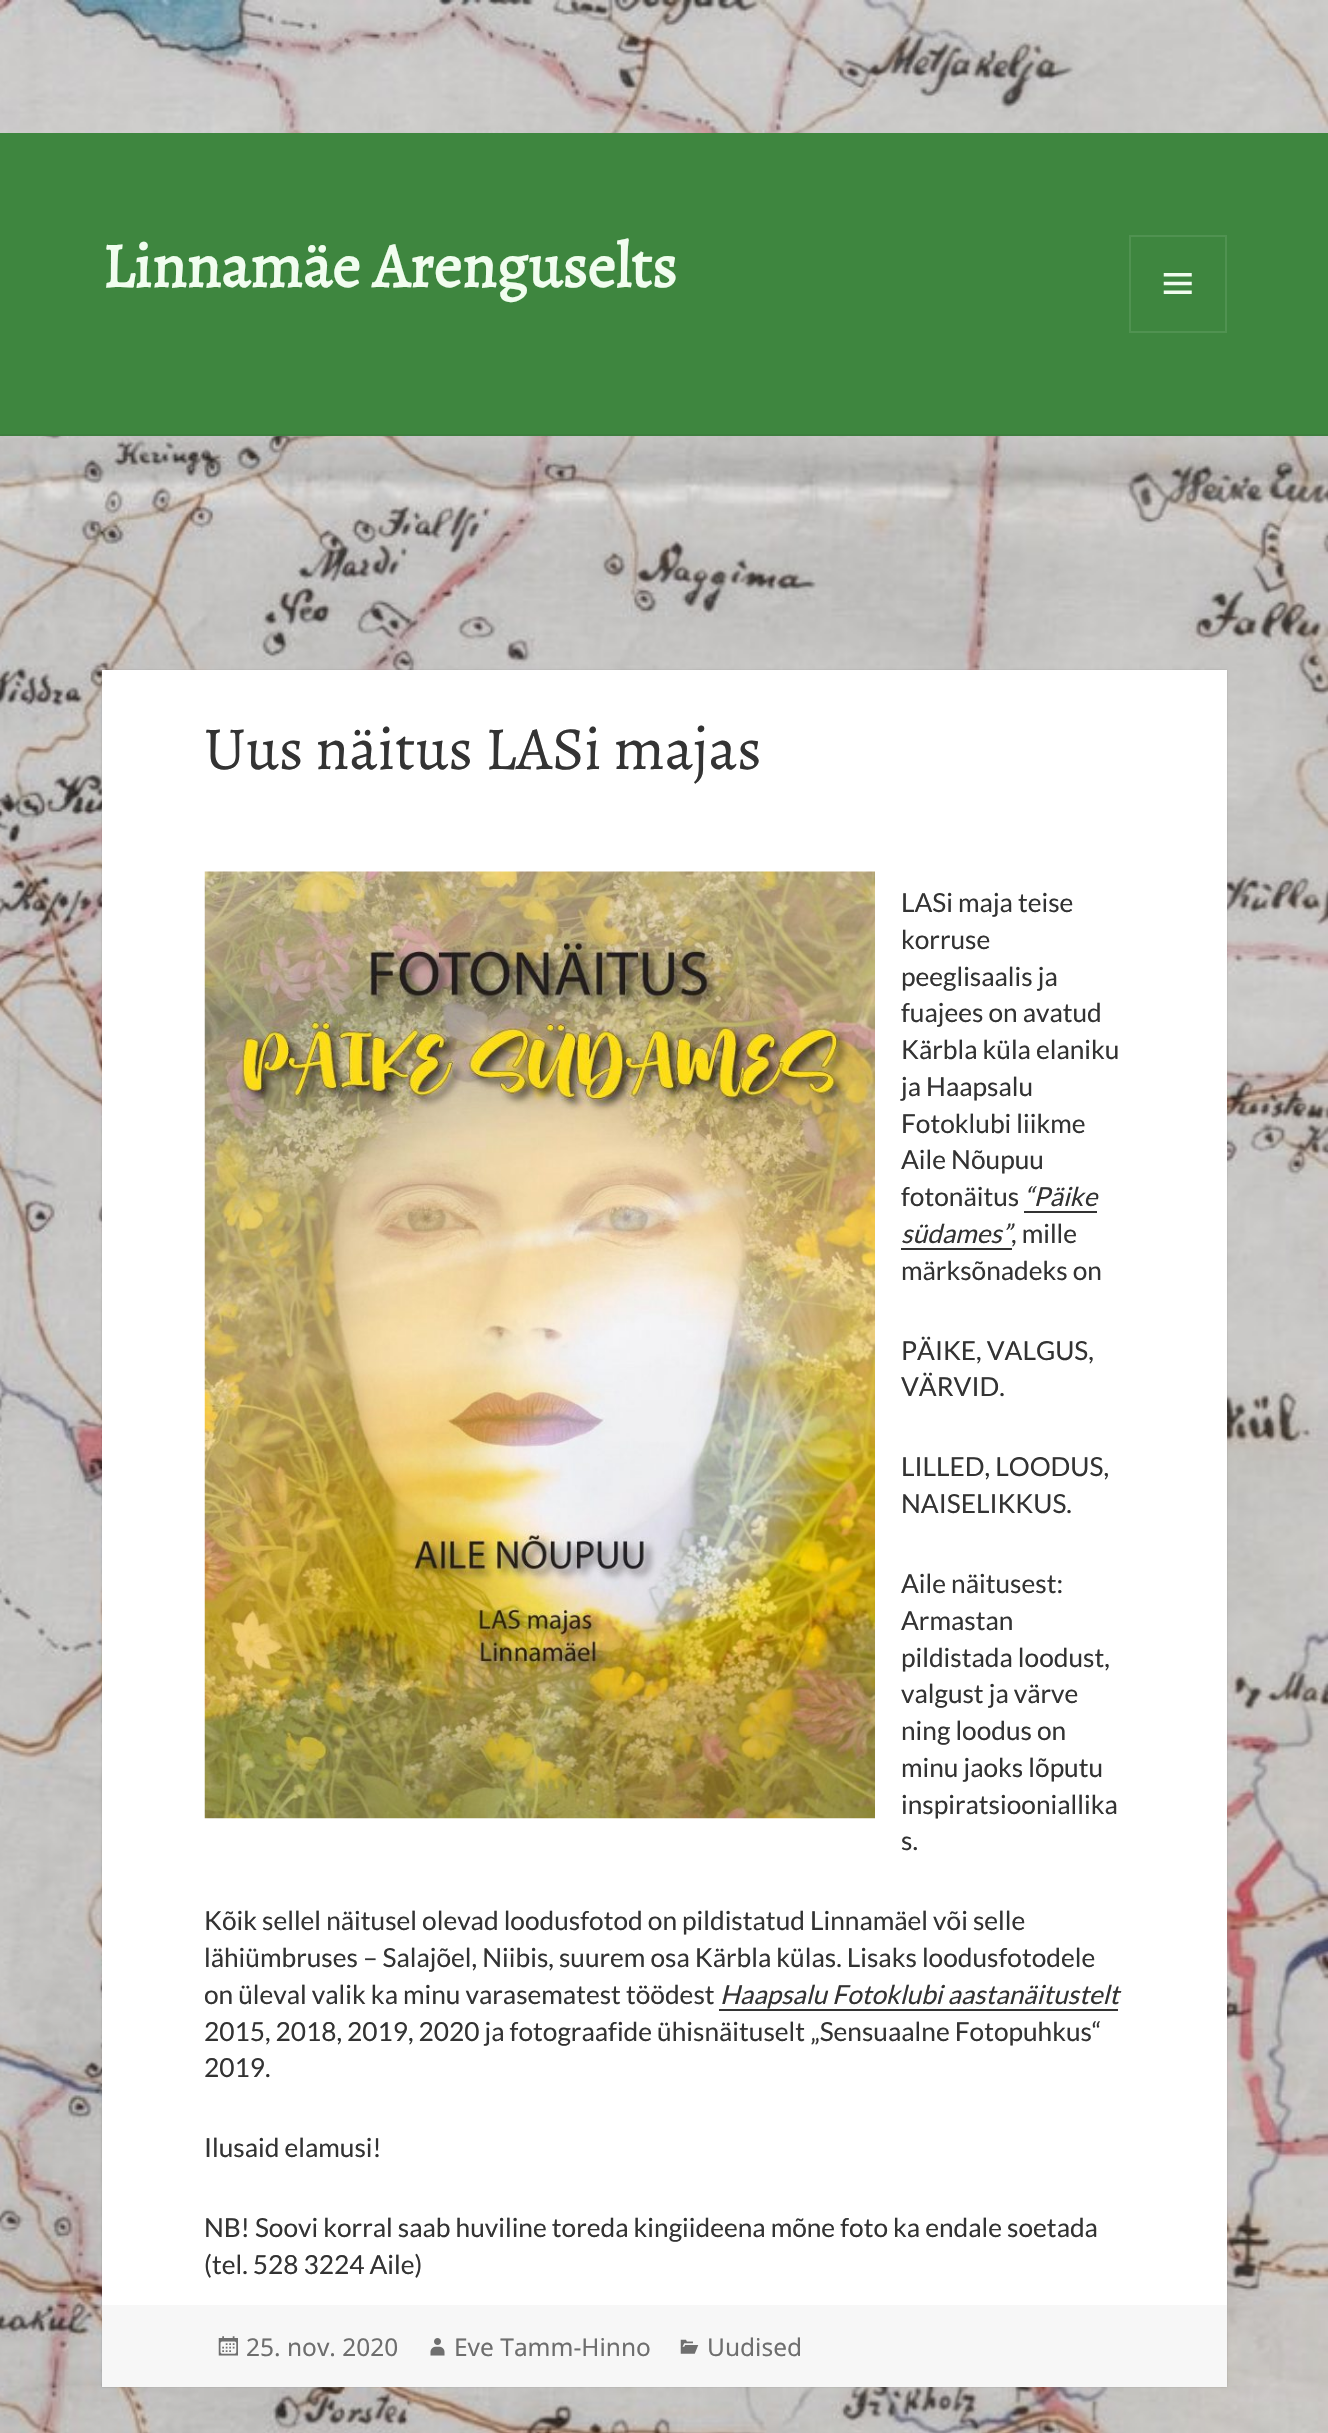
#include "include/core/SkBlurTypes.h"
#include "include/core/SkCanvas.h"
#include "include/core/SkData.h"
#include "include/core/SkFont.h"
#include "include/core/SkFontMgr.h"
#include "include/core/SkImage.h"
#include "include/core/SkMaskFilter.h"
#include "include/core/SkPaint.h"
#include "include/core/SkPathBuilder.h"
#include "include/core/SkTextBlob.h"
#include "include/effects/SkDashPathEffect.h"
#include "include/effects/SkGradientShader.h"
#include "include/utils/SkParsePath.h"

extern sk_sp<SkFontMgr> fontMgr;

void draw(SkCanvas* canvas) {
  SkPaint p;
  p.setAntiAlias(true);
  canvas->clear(SK_ColorWHITE);
  canvas->drawImageRect(SkImages::DeferredFromEncodedData(SkData::MakeFromFileName("images/1.png")), SkRect::MakeLTRB(0, 0, 1328, 2433), SkSamplingOptions());
  p.setColor(SkColorSetRGB(62, 134, 63));
  canvas->drawRect(SkRect::MakeLTRB(0, 133, 1328, 434), p);
  p.setColor(SkColorSetRGB(61, 126, 62));
  canvas->drawRect(SkRect::MakeLTRB(0, 434, 1328, 436), p);
  p.setStyle(SkPaint::kStroke_Style);
  p.setStrokeWidth(2);
  p.setColor(SkColorSetRGB(80, 146, 81));
  canvas->drawRect(SkRect::MakeLTRB(1130, 236, 1226, 332), p);
  canvas->drawImageRect(SkImages::DeferredFromEncodedData(SkData::MakeFromFileName("images/2.png")), SkRect::MakeLTRB(1163, 273, 1192, 294), SkSamplingOptions());
  p.setStyle(SkPaint::kFill_Style);
  p.setColor(SkColorSetARGB(38, 0, 0, 0));
  p.setMaskFilter(SkMaskFilter::MakeBlur(kNormal_SkBlurStyle, 1));
  canvas->drawRect(SkRect::MakeLTRB(102, 670, 1227, 2387), p);
  p.setMaskFilter(nullptr);
  p.setColor(SK_ColorWHITE);
  canvas->drawRect(SkRect::MakeLTRB(102, 670, 1227, 2305), p);
  canvas->drawImageRect(SkImages::DeferredFromEncodedData(SkData::MakeFromFileName("images/3.png")), SkRect::MakeLTRB(204, 871, 875, 1819), SkSamplingOptions());
  p.setColor(SkColorSetRGB(51, 51, 51));
  canvas->drawRect(SkRect::MakeLTRB(1024, 1211, 1097, 1213), p);
  canvas->drawRect(SkRect::MakeLTRB(901, 1248, 1012, 1250), p);
  canvas->drawRect(SkRect::MakeLTRB(719, 2009, 1118, 2011), p);
  p.setColor(SkColorSetRGB(247, 247, 247));
  canvas->drawRect(SkRect::MakeLTRB(102, 2305, 1227, 2387), p);
  canvas->drawImageRect(SkImages::DeferredFromEncodedData(SkData::MakeFromFileName("images/4.png")), SkRect::MakeLTRB(218, 2336, 238, 2356), SkSamplingOptions());
  canvas->drawImageRect(SkImages::DeferredFromEncodedData(SkData::MakeFromFileName("images/5.png")), SkRect::MakeLTRB(430, 2338, 445, 2356), SkSamplingOptions());
  canvas->drawImageRect(SkImages::DeferredFromEncodedData(SkData::MakeFromFileName("images/6.png")), SkRect::MakeLTRB(680, 2339, 699, 2354), SkSamplingOptions());
  SkFont font1(fontMgr->matchFamilyStyle("Alegreya", SkFontStyle::Bold()), 63);
  font1.setSubpixel(true);
  p.setColor(SkColorSetRGB(241, 253, 239));
  canvas->drawString("Linnamäe Arenguselts", 102, 287, font1, p);
  SkFont font2(fontMgr->matchFamilyStyle("Alegreya", SkFontStyle::Normal()), 61.25f);
  font2.setSubpixel(true);
  p.setColor(SkColorSetRGB(51, 51, 51));
  canvas->drawString("Uus näitus LASi majas", 204, 769, font2, p);
  SkFont font3(fontMgr->matchFamilyStyle("Lato", SkFontStyle::Normal()), 26.25f);
  font3.setSubpixel(true);
  canvas->drawString("LASi maja teise", 901, 912, font3, p);
  canvas->drawString("korruse", 901, 949, font3, p);
  canvas->drawString("peeglisaalis ja", 901, 986, font3, p);
  canvas->drawString("fuajees on avatud", 901, 1022, font3, p);
  canvas->drawString("Kärbla küla elaniku", 901, 1059, font3, p);
  canvas->drawString("ja Haapsalu", 901, 1096, font3, p);
  canvas->drawString("Fotoklubi liikme", 901, 1133, font3, p);
  canvas->drawString("Aile Nõupuu", 901, 1169, font3, p);
  canvas->drawString("fotonäitus", 901, 1206, font3, p);
  SkFont font4(fontMgr->matchFamilyStyle("Lato", SkFontStyle::Italic()), 26.25f);
  font4.setSubpixel(true);
  canvas->drawString("“Päike", 1024, 1206, font4, p);
  canvas->drawString("südames”", 901, 1243, font4, p);
  canvas->drawString(", mille", 1011, 1243, font3, p);
  canvas->drawString("märksõnadeks on", 901, 1280, font3, p);
  canvas->drawString("PÄIKE, VALGUS,", 901, 1360, font3, p);
  canvas->drawString("VÄRVID.", 901, 1396, font3, p);
  canvas->drawString("LILLED, LOODUS,", 901, 1476, font3, p);
  canvas->drawString("NAISELIKKUS.", 901, 1513, font3, p);
  canvas->drawString("Aile näitusest:", 901, 1593, font3, p);
  canvas->drawString("Armastan", 901, 1630, font3, p);
  canvas->drawString("pildistada loodust,", 901, 1667, font3, p);
  canvas->drawString("valgust ja värve", 901, 1703, font3, p);
  canvas->drawString("ning loodus on", 901, 1740, font3, p);
  canvas->drawString("minu jaoks lõputu", 901, 1777, font3, p);
  canvas->drawString("inspiratsiooniallika", 901, 1814, font3, p);
  canvas->drawString("s.", 901, 1850, font3, p);
  canvas->drawString("Kõik sellel näitusel olevad loodusfotod on pildistatud Linnamäel või selle", 204, 1930, font3, p);
  canvas->drawString("lähiümbruses – Salajõel, Niibis, suurem osa Kärbla külas. Lisaks loodusfotodele", 204, 1967, font3, p);
  canvas->drawString("on üleval valik ka minu varasematest töödest", 204, 2004, font3, p);
  canvas->drawString("Haapsalu Fotoklubi aastanäitustelt", 720, 2004, font4, p);
  canvas->drawString("2015, 2018, 2019, 2020 ja fotograafide ühisnäituselt „Sensuaalne Fotopuhkus“", 204, 2041, font3, p);
  canvas->drawString("2019.", 204, 2077, font3, p);
  canvas->drawString("Ilusaid elamusi!", 204, 2157, font3, p);
  canvas->drawString("NB! Soovi korral saab huviline toreda kingiideena mõne foto ka endale soetada", 204, 2237, font3, p);
  canvas->drawString("(tel. 528 3224 Aile)", 204, 2274, font3, p);
  SkFont font5(fontMgr->matchFamilyStyle("Noto Sans", SkFontStyle::Normal()), 24.5f);
  font5.setSubpixel(true);
  p.setColor(SkColorSetRGB(110, 110, 110));
  canvas->drawString("25. nov. 2020", 246, 2356, font5, p);
  canvas->drawString("Eve Tamm-Hinno", 454, 2356, font5, p);
  canvas->drawString("Uudised", 707, 2356, font5, p);
}
